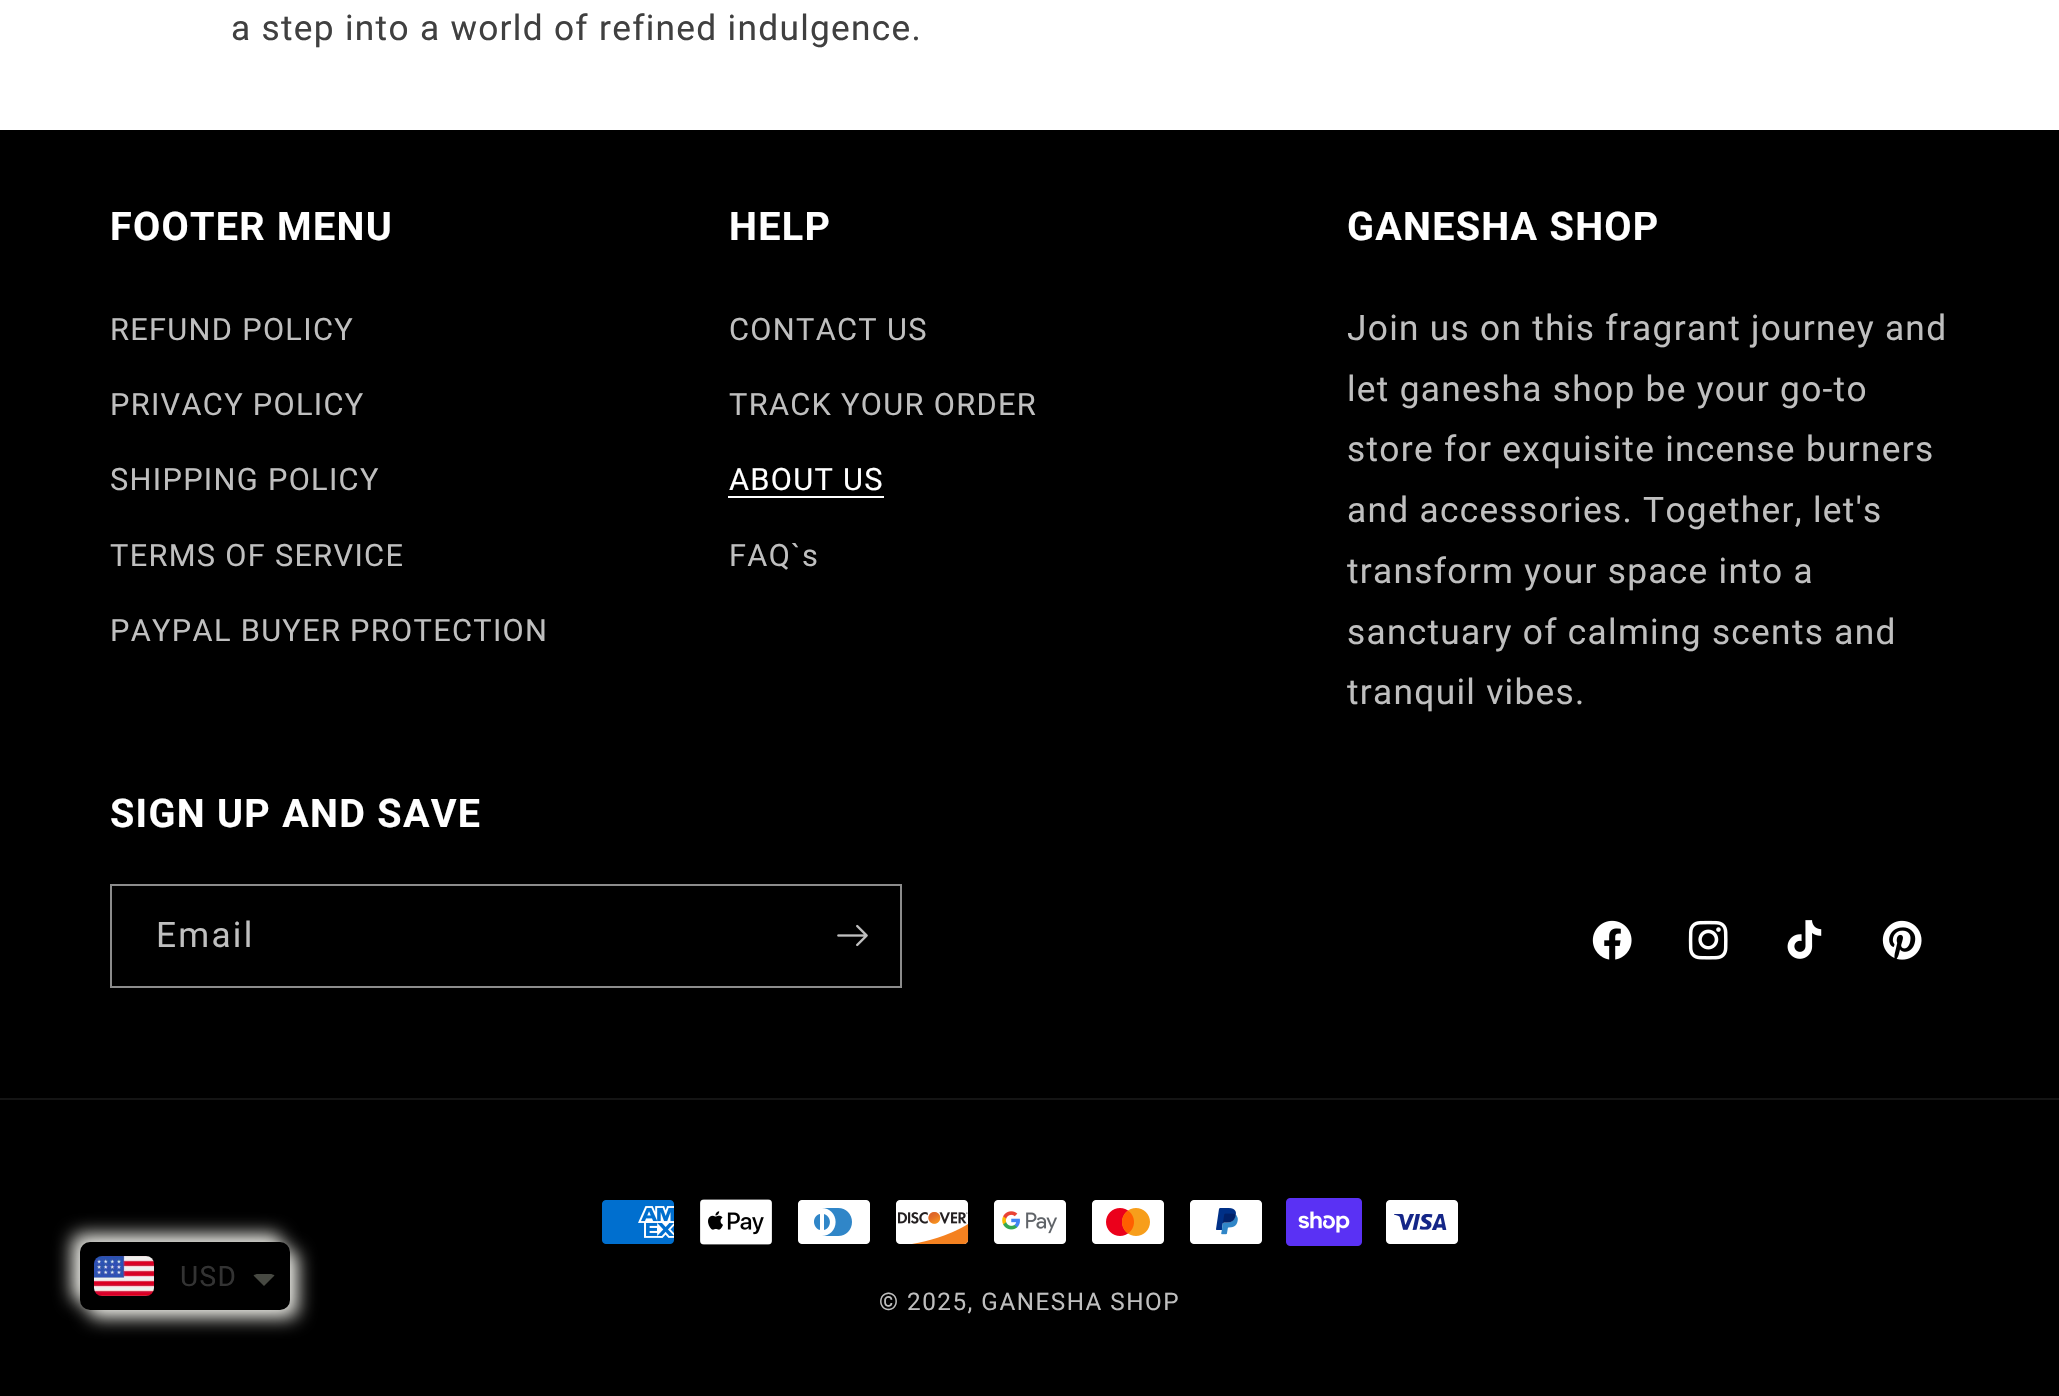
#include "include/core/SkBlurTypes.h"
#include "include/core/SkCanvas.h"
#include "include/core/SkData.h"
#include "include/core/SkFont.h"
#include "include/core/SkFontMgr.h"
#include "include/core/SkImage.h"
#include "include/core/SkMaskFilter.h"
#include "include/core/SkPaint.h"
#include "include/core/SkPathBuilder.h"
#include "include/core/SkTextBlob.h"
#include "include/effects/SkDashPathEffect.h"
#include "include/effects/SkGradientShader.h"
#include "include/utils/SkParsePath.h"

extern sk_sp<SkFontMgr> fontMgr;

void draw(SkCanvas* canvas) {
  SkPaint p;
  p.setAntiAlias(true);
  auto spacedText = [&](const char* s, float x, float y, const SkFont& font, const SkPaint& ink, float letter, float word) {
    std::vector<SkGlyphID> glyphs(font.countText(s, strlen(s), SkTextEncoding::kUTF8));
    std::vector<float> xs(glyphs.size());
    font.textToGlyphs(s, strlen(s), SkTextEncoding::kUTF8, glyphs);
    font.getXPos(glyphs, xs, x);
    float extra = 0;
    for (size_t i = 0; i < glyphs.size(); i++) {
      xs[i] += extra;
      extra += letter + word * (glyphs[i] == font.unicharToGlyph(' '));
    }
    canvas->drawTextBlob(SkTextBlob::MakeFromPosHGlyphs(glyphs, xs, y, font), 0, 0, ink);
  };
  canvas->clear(SK_ColorWHITE);
  p.setColor(SK_ColorBLACK);
  canvas->drawRect(SkRect::MakeLTRB(0, 130, 2059, 1396), p);
  p.setColor(SK_ColorWHITE);
  canvas->drawRect(SkRect::MakeLTRB(728, 496, 884, 498), p);
  p.setStyle(SkPaint::kStroke_Style);
  p.setStrokeWidth(2);
  p.setColor(SkColorSetRGB(140, 140, 140));
  canvas->drawRect(SkRect::MakeLTRB(111, 885, 901, 987), p);
  canvas->drawImageRect(SkImages::DeferredFromEncodedData(SkData::MakeFromFileName("images/1.png")), SkRect::MakeLTRB(837, 924, 868, 947), SkSamplingOptions());
  canvas->drawImageRect(SkImages::DeferredFromEncodedData(SkData::MakeFromFileName("images/2.png")), SkRect::MakeLTRB(1592, 920, 1632, 960), SkSamplingOptions());
  canvas->drawImageRect(SkImages::DeferredFromEncodedData(SkData::MakeFromFileName("images/3.png")), SkRect::MakeLTRB(1688, 920, 1728, 960), SkSamplingOptions());
  canvas->drawImageRect(SkImages::DeferredFromEncodedData(SkData::MakeFromFileName("images/4.png")), SkRect::MakeLTRB(1787, 920, 1822, 959), SkSamplingOptions());
  canvas->drawImageRect(SkImages::DeferredFromEncodedData(SkData::MakeFromFileName("images/5.png")), SkRect::MakeLTRB(1882, 920, 1922, 960), SkSamplingOptions());
  p.setStyle(SkPaint::kFill_Style);
  p.setColor(SkColorSetRGB(20, 20, 20));
  canvas->drawRect(SkRect::MakeLTRB(0, 1098, 2059, 1100), p);
  canvas->drawImageRect(SkImages::DeferredFromEncodedData(SkData::MakeFromFileName("images/6.png")), SkRect::MakeLTRB(602, 1200, 674, 1244), SkSamplingOptions());
  canvas->drawImageRect(SkImages::DeferredFromEncodedData(SkData::MakeFromFileName("images/7.png")), SkRect::MakeLTRB(700, 1199, 772, 1245), SkSamplingOptions());
  canvas->drawImageRect(SkImages::DeferredFromEncodedData(SkData::MakeFromFileName("images/8.png")), SkRect::MakeLTRB(798, 1200, 870, 1244), SkSamplingOptions());
  canvas->drawImageRect(SkImages::DeferredFromEncodedData(SkData::MakeFromFileName("images/9.png")), SkRect::MakeLTRB(896, 1200, 969, 1244), SkSamplingOptions());
  canvas->drawImageRect(SkImages::DeferredFromEncodedData(SkData::MakeFromFileName("images/10.png")), SkRect::MakeLTRB(994, 1200, 1066, 1244), SkSamplingOptions());
  canvas->drawImageRect(SkImages::DeferredFromEncodedData(SkData::MakeFromFileName("images/11.png")), SkRect::MakeLTRB(1092, 1200, 1164, 1244), SkSamplingOptions());
  canvas->drawImageRect(SkImages::DeferredFromEncodedData(SkData::MakeFromFileName("images/12.png")), SkRect::MakeLTRB(1190, 1200, 1262, 1244), SkSamplingOptions());
  canvas->drawImageRect(SkImages::DeferredFromEncodedData(SkData::MakeFromFileName("images/13.png")), SkRect::MakeLTRB(1286, 1198, 1362, 1246), SkSamplingOptions());
  canvas->drawImageRect(SkImages::DeferredFromEncodedData(SkData::MakeFromFileName("images/14.png")), SkRect::MakeLTRB(1386, 1200, 1458, 1244), SkSamplingOptions());
  p.setColor(SkColorSetRGB(232, 232, 226));
  p.setMaskFilter(SkMaskFilter::MakeBlur(kNormal_SkBlurStyle, 9));
  canvas->drawRoundRect(SkRect::MakeLTRB(72, 1234, 282, 1302), 10, 10, p);
  p.setMaskFilter(nullptr);
  p.setMaskFilter(SkMaskFilter::MakeBlur(kNormal_SkBlurStyle, 9));
  canvas->drawRoundRect(SkRect::MakeLTRB(88, 1250, 298, 1318), 10, 10, p);
  p.setMaskFilter(nullptr);
  p.setColor(SK_ColorBLACK);
  canvas->drawRoundRect(SkRect::MakeLTRB(80, 1242, 290, 1310), 10, 10, p);
  canvas->drawImageRect(SkImages::DeferredFromEncodedData(SkData::MakeFromFileName("images/15.png")), SkRect::MakeLTRB(94, 1256, 154, 1296), SkSamplingOptions());
  p.setColor(SkColorSetRGB(71, 73, 66));
  canvas->drawPath(SkPathBuilder().moveTo(258, 1274).cubicTo(256, 1274, 255, 1274.5f, 253.5f, 1275.5f).lineTo(264, 1286).lineTo(274.5f, 1275.5f).cubicTo(273, 1274.5f, 272, 1274, 270, 1274).close().detach(), p);
  SkFont font1(fontMgr->matchFamilyStyle("Roboto", SkFontStyle::Normal()), 35.25f);
  font1.setSubpixel(true);
  p.setColor(SkColorSetRGB(64, 64, 64));
  spacedText("a step into a world of refined indulgence.", 231, 40, font1, p, 1.3f, 0);
  SkFont font2(fontMgr->matchFamilyStyle("Roboto", SkFontStyle::Bold()), 39.5f);
  font2.setSubpixel(true);
  p.setColor(SK_ColorWHITE);
  spacedText("FOOTER MENU", 110, 240, font2, p, 1.3f, 0);
  SkFont font3(fontMgr->matchFamilyStyle("Roboto", SkFontStyle::Normal()), 30.75f);
  font3.setSubpixel(true);
  p.setColor(SkColorSetRGB(191, 191, 191));
  spacedText("REFUND POLICY", 110, 340, font3, p, 1.3f, 0);
  spacedText("PRIVACY POLICY", 110, 415, font3, p, 1.3f, 0);
  spacedText("SHIPPING POLICY", 110, 490, font3, p, 1.3f, 0);
  spacedText("TERMS OF SERVICE", 110, 566, font3, p, 1.3f, 0);
  spacedText("PAYPAL BUYER PROTECTION", 110, 641, font3, p, 1.3f, 0);
  p.setColor(SK_ColorWHITE);
  spacedText("HELP", 729, 240, font2, p, 1.3f, 0);
  p.setColor(SkColorSetRGB(191, 191, 191));
  spacedText("CONTACT US", 729, 340, font3, p, 1.3f, 0);
  spacedText("TRACK YOUR ORDER", 729, 415, font3, p, 1.3f, 0);
  p.setColor(SK_ColorWHITE);
  spacedText("ABOUT US", 729, 490, font3, p, 1.3f, 0);
  p.setColor(SkColorSetRGB(191, 191, 191));
  spacedText("FAQ`s", 729, 566, font3, p, 1.3f, 0);
  p.setColor(SK_ColorWHITE);
  spacedText("GANESHA SHOP", 1347, 240, font2, p, 1.3f, 0);
  p.setColor(SkColorSetRGB(191, 191, 191));
  spacedText("Join us on this fragrant journey and", 1347, 340, font1, p, 1.3f, 0);
  spacedText("let ganesha shop be your go-to", 1347, 401, font1, p, 1.3f, 0);
  spacedText("store for exquisite incense burners", 1347, 461, font1, p, 1.3f, 0);
  spacedText("and accessories. Together, let's", 1347, 522, font1, p, 1.3f, 0);
  spacedText("transform your space into a", 1347, 583, font1, p, 1.3f, 0);
  spacedText("sanctuary of calming scents and", 1347, 644, font1, p, 1.3f, 0);
  spacedText("tranquil vibes.", 1347, 704, font1, p, 1.3f, 0);
  p.setColor(SK_ColorWHITE);
  spacedText("SIGN UP AND SAVE", 110, 827, font2, p, 1.3f, 0);
  p.setColor(SkColorSetRGB(191, 191, 191));
  spacedText("Email", 156, 947, font1, p, 2.25f, 0);
  SkFont font4(fontMgr->matchFamilyStyle("Roboto", SkFontStyle::Normal()), 24.25f);
  font4.setSubpixel(true);
  spacedText("© 2025, GANESHA SHOP", 879, 1310, font4, p, 1.5f, 0);
  SkFont font5(fontMgr->matchFamilyStyle("Roboto", SkFontStyle::Normal()), 28);
  font5.setSubpixel(true);
  p.setColor(SkColorSetRGB(51, 51, 51));
  spacedText("USD", 180, 1286, font5, p, 1.3f, 0);
}
